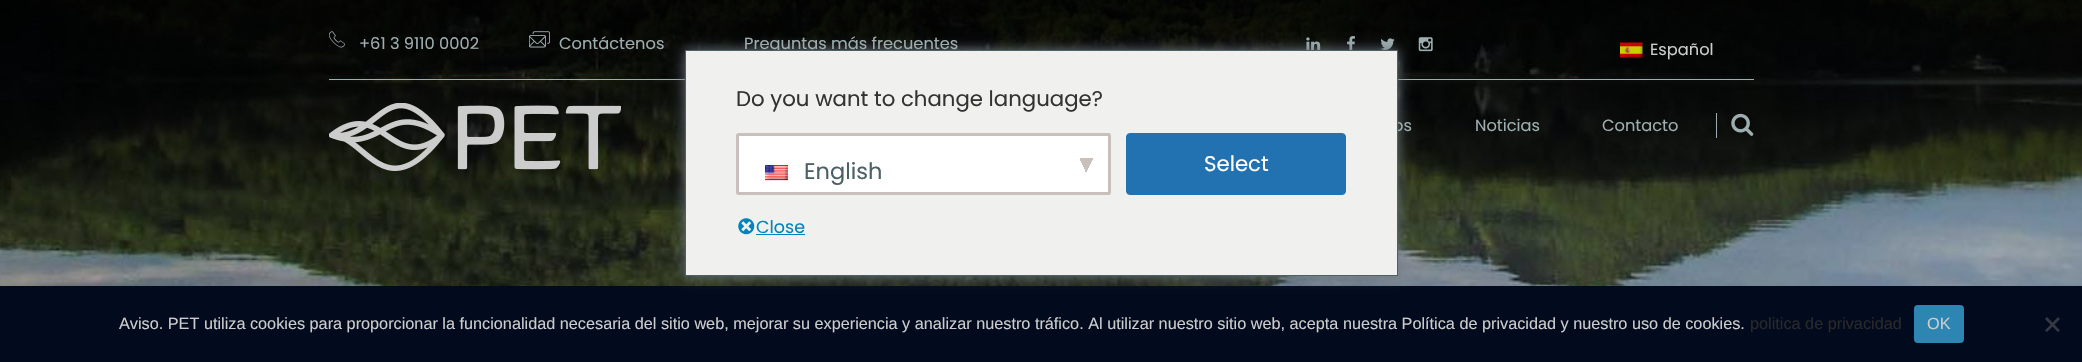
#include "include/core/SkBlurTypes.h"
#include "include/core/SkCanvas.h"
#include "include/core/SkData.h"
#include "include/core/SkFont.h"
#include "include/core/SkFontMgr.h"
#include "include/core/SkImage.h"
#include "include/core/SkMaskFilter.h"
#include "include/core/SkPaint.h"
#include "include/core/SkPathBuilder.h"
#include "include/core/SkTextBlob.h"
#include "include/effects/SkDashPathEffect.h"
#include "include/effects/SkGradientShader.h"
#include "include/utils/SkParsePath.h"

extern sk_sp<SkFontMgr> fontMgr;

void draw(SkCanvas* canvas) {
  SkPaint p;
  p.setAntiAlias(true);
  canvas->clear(SK_ColorWHITE);
  canvas->drawImageRect(SkImages::DeferredFromEncodedData(SkData::MakeFromFileName("images/1.png")), SkRect::MakeLTRB(0, 0, 2082, 286), SkSamplingOptions());
  p.setColor(SkColorSetRGB(158, 174, 176));
  canvas->drawRect(SkRect::MakeLTRB(329, 79, 1754, 80), p);
  canvas->drawImageRect(SkImages::DeferredFromEncodedData(SkData::MakeFromFileName("images/2.png")), SkRect::MakeLTRB(329, 31, 345, 48), SkSamplingOptions());
  canvas->drawImageRect(SkImages::DeferredFromEncodedData(SkData::MakeFromFileName("images/3.png")), SkRect::MakeLTRB(529, 31, 550, 48), SkSamplingOptions());
  canvas->drawImageRect(SkImages::DeferredFromEncodedData(SkData::MakeFromFileName("images/4.png")), SkRect::MakeLTRB(1306, 37, 1321, 50), SkSamplingOptions());
  canvas->drawImageRect(SkImages::DeferredFromEncodedData(SkData::MakeFromFileName("images/5.png")), SkRect::MakeLTRB(1347, 36, 1355, 50), SkSamplingOptions());
  canvas->drawImageRect(SkImages::DeferredFromEncodedData(SkData::MakeFromFileName("images/6.png")), SkRect::MakeLTRB(1380, 38, 1395, 50), SkSamplingOptions());
  canvas->drawImageRect(SkImages::DeferredFromEncodedData(SkData::MakeFromFileName("images/7.png")), SkRect::MakeLTRB(1418, 37, 1433, 52), SkSamplingOptions());
  canvas->drawImageRect(SkImages::DeferredFromEncodedData(SkData::MakeFromFileName("images/8.png")), SkRect::MakeLTRB(1620, 42, 1643, 58), SkSamplingOptions());
  canvas->drawImageRect(SkImages::DeferredFromEncodedData(SkData::MakeFromFileName("images/9.png")), SkRect::MakeLTRB(329, 103, 621, 171), SkSamplingOptions());
  canvas->drawRect(SkRect::MakeLTRB(1716, 113, 1717, 138), p);
  canvas->drawImageRect(SkImages::DeferredFromEncodedData(SkData::MakeFromFileName("images/10.png")), SkRect::MakeLTRB(1731, 113, 1754, 136), SkSamplingOptions());
  p.setColor(SkColorSetRGB(2, 10, 30));
  canvas->drawRect(SkRect::MakeLTRB(0, 286, 2082, 362), p);
  p.setColor(SkColorSetRGB(108, 119, 129));
  p.setMaskFilter(SkMaskFilter::MakeBlur(kNormal_SkBlurStyle, 6));
  canvas->drawRect(SkRect::MakeLTRB(685, 50, 1398, 276), p);
  p.setMaskFilter(nullptr);
  p.setColor(SkColorSetRGB(45, 134, 178));
  canvas->drawRoundRect(SkRect::MakeLTRB(1914, 305, 1964, 343), 4, 4, p);
  p.setColor(SkColorSetRGB(53, 57, 66));
  canvas->drawPath(SkPathBuilder().moveTo(2058, 317).lineTo(2060, 319).lineTo(2047, 332).lineTo(2045, 330.5f).close().detach(), p);
  canvas->drawPath(SkPathBuilder().moveTo(2045, 319).lineTo(2047, 317).lineTo(2060, 330.5f).lineTo(2058, 332).close().detach(), p);
  SkFont font1(fontMgr->matchFamilyStyle("Poppins", SkFontStyle::Normal()), 16.25f);
  font1.setSubpixel(true);
  p.setColor(SkColorSetRGB(158, 174, 176));
  canvas->drawString("+61 3 9110 0002", 359, 49, font1, p);
  canvas->drawString("Contáctenos", 559, 49, font1, p);
  canvas->drawString("Preguntas más frecuentes", 744, 49, font1, p);
  p.setColor(SkColorSetRGB(204, 204, 204));
  canvas->drawString("Español", 1650, 55, font1, p);
  p.setColor(SkColorSetRGB(158, 174, 176));
  canvas->drawString("os", 1393, 131, font1, p);
  canvas->drawString("Noticias", 1475, 131, font1, p);
  canvas->drawString("Contacto", 1602, 131, font1, p);
  p.setColor(SkColorSetRGB(240, 240, 238));
  canvas->drawRect(SkRect::MakeLTRB(685.5f, 50.5f, 1397.5f, 275.5f), p);
  p.setStyle(SkPaint::kStroke_Style);
  p.setStrokeWidth(1);
  p.setColor(SkColorSetRGB(76, 96, 102));
  canvas->drawRect(SkRect::MakeLTRB(685.5f, 50.5f, 1397.5f, 275.5f), p);
  SkFont font2(fontMgr->matchFamilyStyle("Poppins", SkFontStyle::Normal()), 21.25f);
  font2.setSubpixel(true);
  p.setStyle(SkPaint::kFill_Style);
  p.setColor(SkColorSetRGB(51, 51, 51));
  canvas->drawString("Do you want to change language?", 736, 106, font2, p);
  p.setColor(SK_ColorWHITE);
  canvas->drawRoundRect(SkRect::MakeLTRB(736, 133, 1111, 195), 2.5f, 2.5f, p);
  {
    const SkColor colors[] = {SkColorSetRGB(201, 192, 187), SK_ColorWHITE};
    const float stops[] = {0.5f, 0.5f};
    const SkPoint ends[] = {{1084, 162}, {1096, 168}};
    p.setShader(SkGradientShader::MakeLinear(ends, colors, stops, 2, SkTileMode::kClamp));
    p.setAlpha(255);
  }
  canvas->drawRect(SkRect::MakeLTRB(1086, 158, 1093, 173), p);
  {
    const SkColor colors[] = {SK_ColorWHITE, SkColorSetRGB(201, 192, 187)};
    const float stops[] = {0.5f, 0.5f};
    const SkPoint ends[] = {{1076, 168}, {1089, 162}};
    p.setShader(SkGradientShader::MakeLinear(ends, colors, stops, 2, SkTileMode::kClamp));
    p.setAlpha(255);
  }
  canvas->drawRect(SkRect::MakeLTRB(1079, 158, 1086, 173), p);
  p.setStyle(SkPaint::kStroke_Style);
  p.setStrokeWidth(3);
  p.setShader(nullptr);
  p.setColor(SkColorSetRGB(201, 192, 187));
  canvas->drawRoundRect(SkRect::MakeLTRB(737.5f, 134.5f, 1109.5f, 193.5f), 1, 1, p);
  canvas->drawImageRect(SkImages::DeferredFromEncodedData(SkData::MakeFromFileName("images/11.png")), SkRect::MakeLTRB(765, 165, 788, 181), SkSamplingOptions());
  SkFont font3(fontMgr->matchFamilyStyle("Poppins", SkFontStyle::Normal()), 22.5f);
  font3.setSubpixel(true);
  p.setStyle(SkPaint::kFill_Style);
  p.setColor(SkColorSetRGB(76, 96, 102));
  canvas->drawString("English", 804, 179, font3, p);
  p.setColor(SkColorSetRGB(34, 113, 177));
  canvas->drawRoundRect(SkRect::MakeLTRB(1126.5f, 133.5f, 1345.5f, 194.5f), 3.5f, 3.5f, p);
  p.setStyle(SkPaint::kStroke_Style);
  p.setStrokeWidth(1);
  canvas->drawRoundRect(SkRect::MakeLTRB(1126.5f, 133.5f, 1345.5f, 194.5f), 3.5f, 3.5f, p);
  p.setStyle(SkPaint::kFill_Style);
  p.setColor(SK_ColorWHITE);
  canvas->drawString("Select", 1204, 171, font2, p);
  canvas->drawImageRect(SkImages::DeferredFromEncodedData(SkData::MakeFromFileName("images/12.png")), SkRect::MakeLTRB(738, 218, 755, 235), SkSamplingOptions());
  SkFont font4(fontMgr->matchFamilyStyle("Poppins", SkFontStyle::Normal()), 17.5f);
  font4.setSubpixel(true);
  p.setColor(SkColorSetRGB(0, 133, 186));
  canvas->drawString("Close", 756, 233, font4, p);
  canvas->drawRect(SkRect::MakeLTRB(756, 234, 805, 235), p);
  SkFont font5(fontMgr->matchFamilyStyle("Liberation Sans", SkFontStyle::Normal()), 16.25f);
  font5.setSubpixel(true);
  p.setColor(SkColorSetRGB(204, 204, 204));
  canvas->drawString("Aviso. PET utiliza cookies para proporcionar la funcionalidad necesaria del sitio web, mejorar su experiencia y analizar nuestro tráfico. Al utilizar nuestro sitio web, acepta nuestra Política de privacidad y nuestro uso de cookies.", 119, 329, font5, p);
  p.setColor(SkColorSetRGB(41, 41, 41));
  canvas->drawString("politica de privacidad", 1750, 329, font5, p);
  p.setColor(SkColorSetRGB(204, 204, 204));
  canvas->drawString("OK", 1927, 329, font5, p);
}
